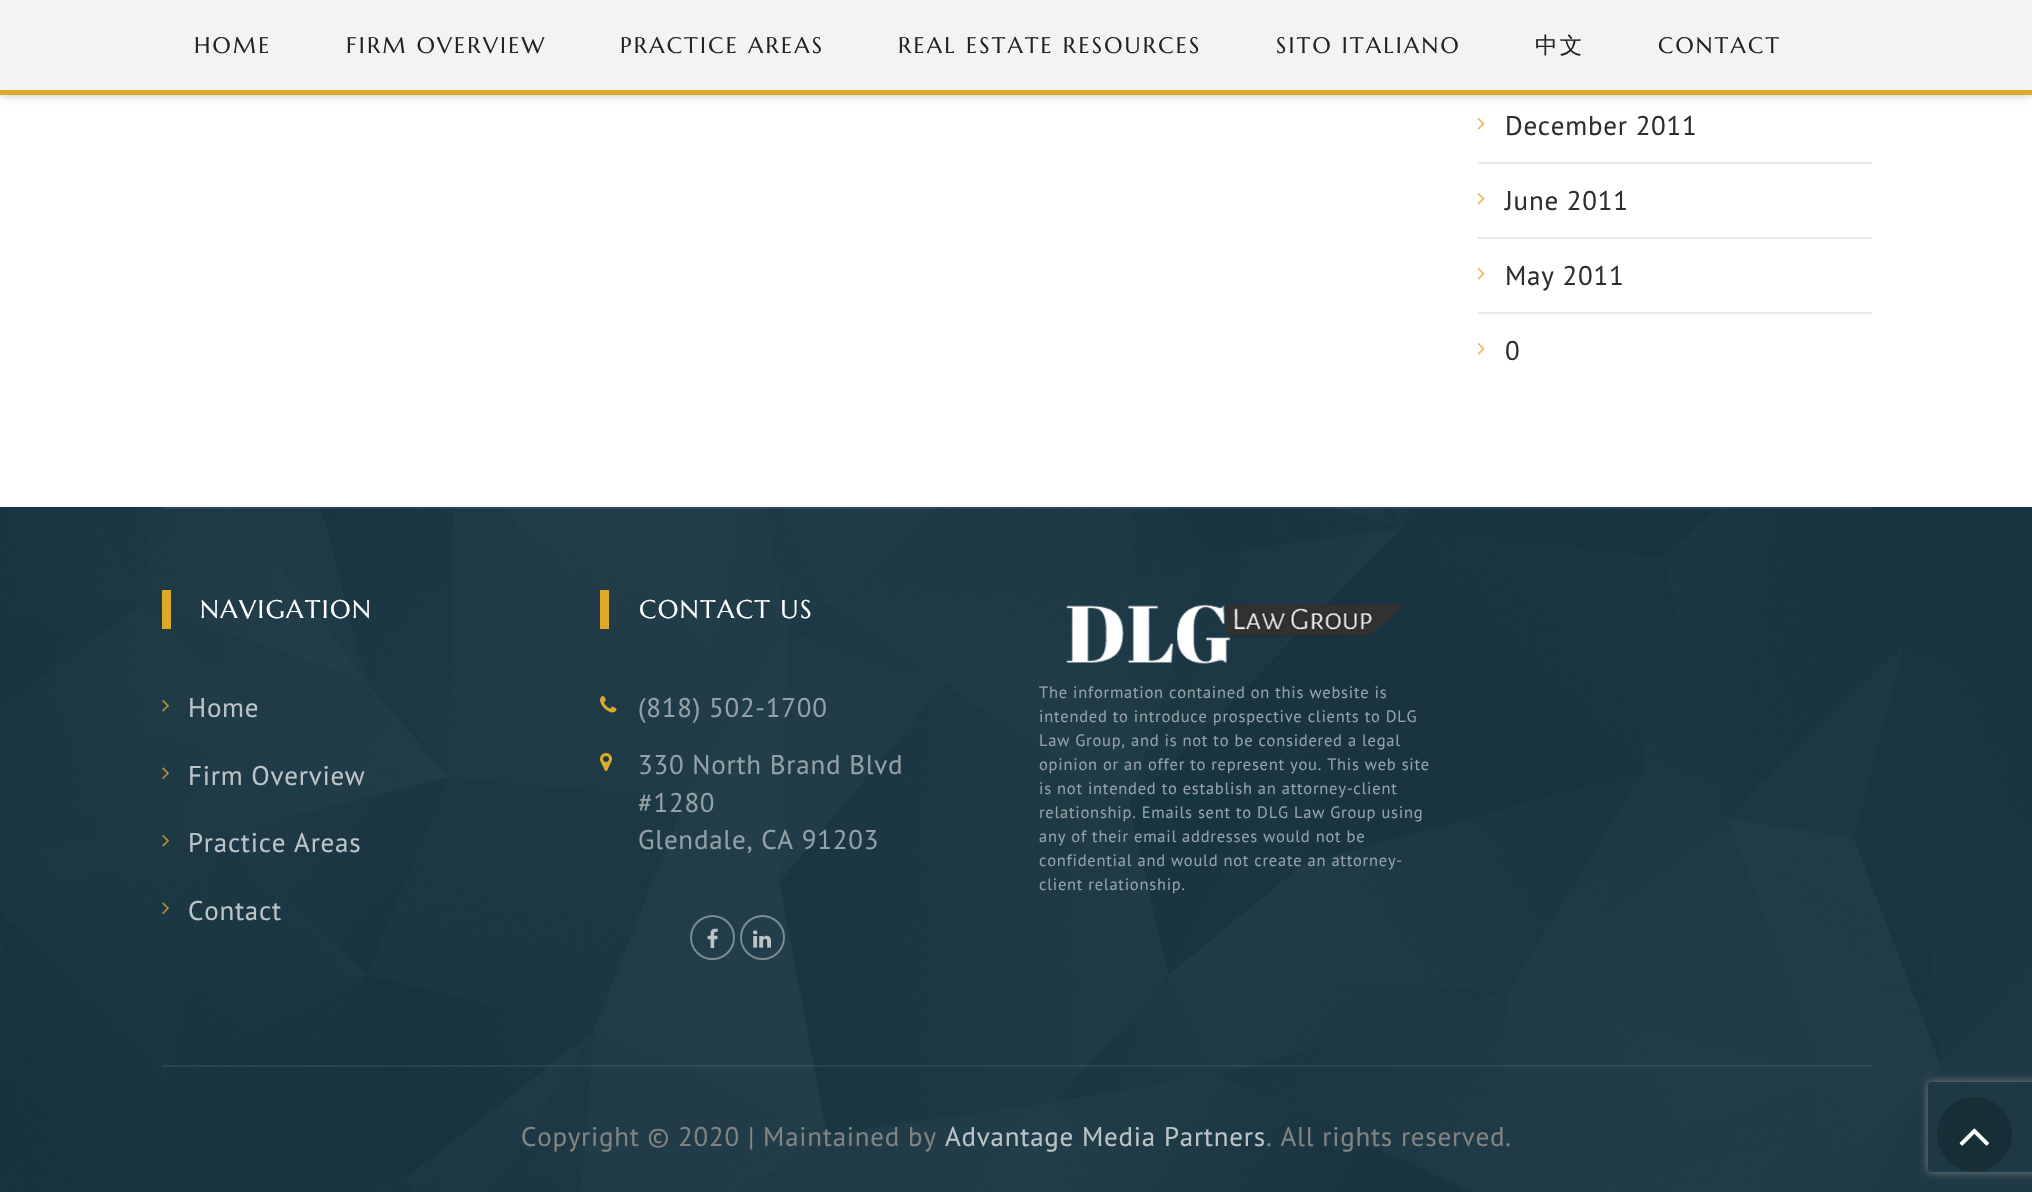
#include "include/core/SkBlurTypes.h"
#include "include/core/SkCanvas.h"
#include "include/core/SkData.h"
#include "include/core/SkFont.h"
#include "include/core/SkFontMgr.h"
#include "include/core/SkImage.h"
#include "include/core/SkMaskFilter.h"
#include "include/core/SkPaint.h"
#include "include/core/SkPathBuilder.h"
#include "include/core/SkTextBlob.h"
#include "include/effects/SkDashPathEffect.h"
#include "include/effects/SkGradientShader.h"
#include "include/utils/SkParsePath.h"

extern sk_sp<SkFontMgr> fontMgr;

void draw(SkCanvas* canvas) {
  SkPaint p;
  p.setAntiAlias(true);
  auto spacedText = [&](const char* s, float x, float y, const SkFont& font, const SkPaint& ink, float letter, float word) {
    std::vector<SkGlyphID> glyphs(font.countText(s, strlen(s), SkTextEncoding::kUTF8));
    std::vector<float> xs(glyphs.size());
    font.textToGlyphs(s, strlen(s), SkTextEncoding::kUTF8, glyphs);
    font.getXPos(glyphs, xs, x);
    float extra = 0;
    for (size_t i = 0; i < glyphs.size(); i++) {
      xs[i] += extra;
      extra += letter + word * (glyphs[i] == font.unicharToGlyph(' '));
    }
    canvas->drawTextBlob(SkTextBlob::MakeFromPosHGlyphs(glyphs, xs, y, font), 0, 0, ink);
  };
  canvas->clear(SK_ColorWHITE);
  p.setColor(SkColorSetARGB(51, 0, 0, 0));
  p.setMaskFilter(SkMaskFilter::MakeBlur(kNormal_SkBlurStyle, 4));
  canvas->drawRect(SkRect::MakeLTRB(0, 2, 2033, 96), p);
  p.setMaskFilter(nullptr);
  p.setColor(SkColorSetRGB(243, 243, 243));
  canvas->drawRect(SkRect::MakeLTRB(0, 0, 2032, 90), p);
  p.setColor(SkColorSetRGB(222, 168, 41));
  canvas->drawRect(SkRect::MakeLTRB(0, 90, 2032, 95), p);
  canvas->drawImageRect(SkImages::DeferredFromEncodedData(SkData::MakeFromFileName("images/1.png")), SkRect::MakeLTRB(1477, 118, 1485, 130), SkSamplingOptions());
  p.setColor(SkColorSetRGB(233, 233, 233));
  canvas->drawRect(SkRect::MakeLTRB(1478, 162, 1872, 164), p);
  canvas->drawImageRect(SkImages::DeferredFromEncodedData(SkData::MakeFromFileName("images/1.png")), SkRect::MakeLTRB(1477, 193, 1485, 205), SkSamplingOptions());
  canvas->drawRect(SkRect::MakeLTRB(1478, 237, 1872, 239), p);
  canvas->drawImageRect(SkImages::DeferredFromEncodedData(SkData::MakeFromFileName("images/1.png")), SkRect::MakeLTRB(1477, 268, 1485, 280), SkSamplingOptions());
  canvas->drawRect(SkRect::MakeLTRB(1478, 312, 1872, 314), p);
  canvas->drawImageRect(SkImages::DeferredFromEncodedData(SkData::MakeFromFileName("images/1.png")), SkRect::MakeLTRB(1477, 343, 1485, 355), SkSamplingOptions());
  canvas->drawImageRect(SkImages::DeferredFromEncodedData(SkData::MakeFromFileName("images/2.png")), SkRect::MakeLTRB(0, 507, 2032, 1192), SkSamplingOptions());
  p.setColor(SkColorSetARGB(18, 255, 255, 255));
  canvas->drawRect(SkRect::MakeLTRB(162, 507, 1872, 509), p);
  p.setColor(SkColorSetRGB(222, 168, 41));
  canvas->drawRect(SkRect::MakeLTRB(162, 590, 171, 629), p);
  canvas->drawImageRect(SkImages::DeferredFromEncodedData(SkData::MakeFromFileName("images/3.png")), SkRect::MakeLTRB(162, 700, 169, 712), SkSamplingOptions());
  canvas->drawImageRect(SkImages::DeferredFromEncodedData(SkData::MakeFromFileName("images/4.png")), SkRect::MakeLTRB(162, 767, 169, 779), SkSamplingOptions());
  canvas->drawImageRect(SkImages::DeferredFromEncodedData(SkData::MakeFromFileName("images/5.png")), SkRect::MakeLTRB(162, 835, 169, 847), SkSamplingOptions());
  canvas->drawImageRect(SkImages::DeferredFromEncodedData(SkData::MakeFromFileName("images/6.png")), SkRect::MakeLTRB(162, 902, 169, 914), SkSamplingOptions());
  canvas->drawRect(SkRect::MakeLTRB(600, 590, 609, 629), p);
  canvas->drawImageRect(SkImages::DeferredFromEncodedData(SkData::MakeFromFileName("images/7.png")), SkRect::MakeLTRB(600, 696, 617, 713), SkSamplingOptions());
  canvas->drawImageRect(SkImages::DeferredFromEncodedData(SkData::MakeFromFileName("images/8.png")), SkRect::MakeLTRB(600, 753, 612, 771), SkSamplingOptions());
  p.setStyle(SkPaint::kStroke_Style);
  p.setStrokeWidth(2);
  p.setColor(SkColorSetRGB(122, 139, 146));
  canvas->drawCircle(712.5f, 937.5f, 21.5f, p);
  canvas->drawImageRect(SkImages::DeferredFromEncodedData(SkData::MakeFromFileName("images/9.png")), SkRect::MakeLTRB(707, 928, 718, 949), SkSamplingOptions());
  p.setColor(SkColorSetRGB(123, 139, 146));
  canvas->drawCircle(762.5f, 937.5f, 21.5f, p);
  canvas->drawImageRect(SkImages::DeferredFromEncodedData(SkData::MakeFromFileName("images/10.png")), SkRect::MakeLTRB(753, 930, 771, 948), SkSamplingOptions());
  canvas->drawImageRect(SkImages::DeferredFromEncodedData(SkData::MakeFromFileName("images/11.png")), SkRect::MakeLTRB(1066, 604, 1406, 664), SkSamplingOptions());
  p.setStyle(SkPaint::kFill_Style);
  p.setColor(SkColorSetARGB(18, 255, 255, 255));
  canvas->drawRect(SkRect::MakeLTRB(162, 1065, 1872, 1067), p);
  canvas->save();
  canvas->clipPath(SkPathBuilder(SkPathFillType::kEvenOdd).moveTo(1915, 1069).lineTo(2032, 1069).lineTo(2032, 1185).lineTo(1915, 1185).close().moveTo(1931, 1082).lineTo(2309, 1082).cubicTo(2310.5f, 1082, 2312, 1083.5f, 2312, 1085).lineTo(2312, 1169).cubicTo(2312, 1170.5f, 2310.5f, 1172, 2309, 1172).lineTo(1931, 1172).cubicTo(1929.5f, 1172, 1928, 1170.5f, 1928, 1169).lineTo(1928, 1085).cubicTo(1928, 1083.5f, 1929.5f, 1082, 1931, 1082).close().detach(), true);
  p.setColor(SkColorSetRGB(128, 128, 128));
  p.setMaskFilter(SkMaskFilter::MakeBlur(kNormal_SkBlurStyle, 4));
  canvas->drawRoundRect(SkRect::MakeLTRB(1928, 1082, 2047, 1172), 3, 3, p);
  p.setMaskFilter(nullptr);
  canvas->restore();
  p.setColor(SkColorSetARGB(51, 0, 0, 0));
  canvas->drawCircle(1974.5f, 1134.5f, 37.5f, p);
  canvas->drawImageRect(SkImages::DeferredFromEncodedData(SkData::MakeFromFileName("images/12.png")), SkRect::MakeLTRB(1959, 1128, 1989, 1146), SkSamplingOptions());
  SkFont font1(fontMgr->matchFamilyStyle("Marcellus", SkFontStyle::Normal()), 22.5f);
  font1.setSubpixel(true);
  p.setColor(SkColorSetRGB(34, 34, 34));
  spacedText("HOME", 194, 53, font1, p, 2.25f, 0);
  spacedText("FIRM OVERVIEW", 346, 53, font1, p, 2.25f, 0);
  spacedText("PRACTICE AREAS", 620, 53, font1, p, 2.25f, 0);
  spacedText("REAL ESTATE RESOURCES", 898, 53, font1, p, 2.25f, 0);
  spacedText("SITO ITALIANO", 1276, 53, font1, p, 2.25f, 0);
  SkFont font2(fontMgr->matchFamilyStyle("WenQuanYi Zen Hei", SkFontStyle(500, SkFontStyle::kNormal_Width, SkFontStyle::kUpright_Slant)), 22.5f);
  font2.setSubpixel(true);
  spacedText("中文", 1535, 53, font2, p, 2.25f, 0);
  spacedText("CONTACT", 1658, 53, font1, p, 2.25f, 0);
  SkFont font3(fontMgr->matchFamilyStyle("PT Sans", SkFontStyle::Normal()), 27);
  font3.setSubpixel(true);
  p.setColor(SkColorSetRGB(45, 45, 45));
  spacedText("December 2011", 1505, 135, font3, p, 0.75f, 0);
  spacedText("June 2011", 1505, 210, font3, p, 0.75f, 0);
  spacedText("May 2011", 1505, 285, font3, p, 0.75f, 0);
  spacedText("0", 1505, 360, font3, p, 0.75f, 0);
  SkFont font4(fontMgr->matchFamilyStyle("Marcellus", SkFontStyle::Normal()), 25.5f);
  font4.setSubpixel(true);
  p.setColor(SK_ColorWHITE);
  spacedText("NAVIGATION", 200, 618, font4, p, 1.5f, 0);
  p.setColor(SkColorSetRGB(188, 196, 200));
  spacedText("Home", 188, 717, font3, p, 0.75f, 0);
  spacedText("Firm Overview", 188, 785, font3, p, 0.75f, 0);
  spacedText("Practice Areas", 188, 852, font3, p, 0.75f, 0);
  spacedText("Contact", 188, 920, font3, p, 0.75f, 0);
  p.setColor(SK_ColorWHITE);
  spacedText("CONTACT US", 639, 618, font4, p, 1.5f, 0);
  p.setColor(SkColorSetRGB(148, 161, 167));
  spacedText("(818) 502-1700", 638, 717, font3, p, 0.75f, 0);
  spacedText("330 North Brand Blvd", 638, 774, font3, p, 0.75f, 0);
  spacedText("#1280", 638, 812, font3, p, 0.75f, 0);
  spacedText("Glendale, CA 91203", 638, 849, font3, p, 0.75f, 0);
  SkFont font5(fontMgr->matchFamilyStyle("PT Sans", SkFontStyle::Normal()), 16.5f);
  font5.setSubpixel(true);
  spacedText("The information contained on this website is", 1039, 698, font5, p, 0.75f, 0);
  spacedText("intended to introduce prospective clients to DLG", 1039, 722, font5, p, 0.75f, 0);
  spacedText("Law Group, and is not to be considered a legal", 1039, 746, font5, p, 0.75f, 0);
  spacedText("opinion or an offer to represent you. This web site", 1039, 770, font5, p, 0.75f, 0);
  spacedText("is not intended to establish an attorney-client", 1039, 794, font5, p, 0.75f, 0);
  spacedText("relationship. Emails sent to DLG Law Group using", 1039, 818, font5, p, 0.75f, 0);
  spacedText("any of their email addresses would not be", 1039, 842, font5, p, 0.75f, 0);
  spacedText("confidential and would not create an attorney-", 1039, 866, font5, p, 0.75f, 0);
  spacedText("client relationship.", 1039, 890, font5, p, 0.75f, 0);
  p.setColor(SkColorSetRGB(131, 131, 131));
  spacedText("Copyright © 2020 | Maintained by", 521, 1146, font3, p, 0.75f, 0);
  p.setColor(SkColorSetRGB(188, 196, 200));
  spacedText("Advantage Media Partners", 945, 1146, font3, p, 0.75f, 0);
  p.setColor(SkColorSetRGB(131, 131, 131));
  spacedText(". All rights reserved.", 1266, 1146, font3, p, 0.75f, 0);
}
